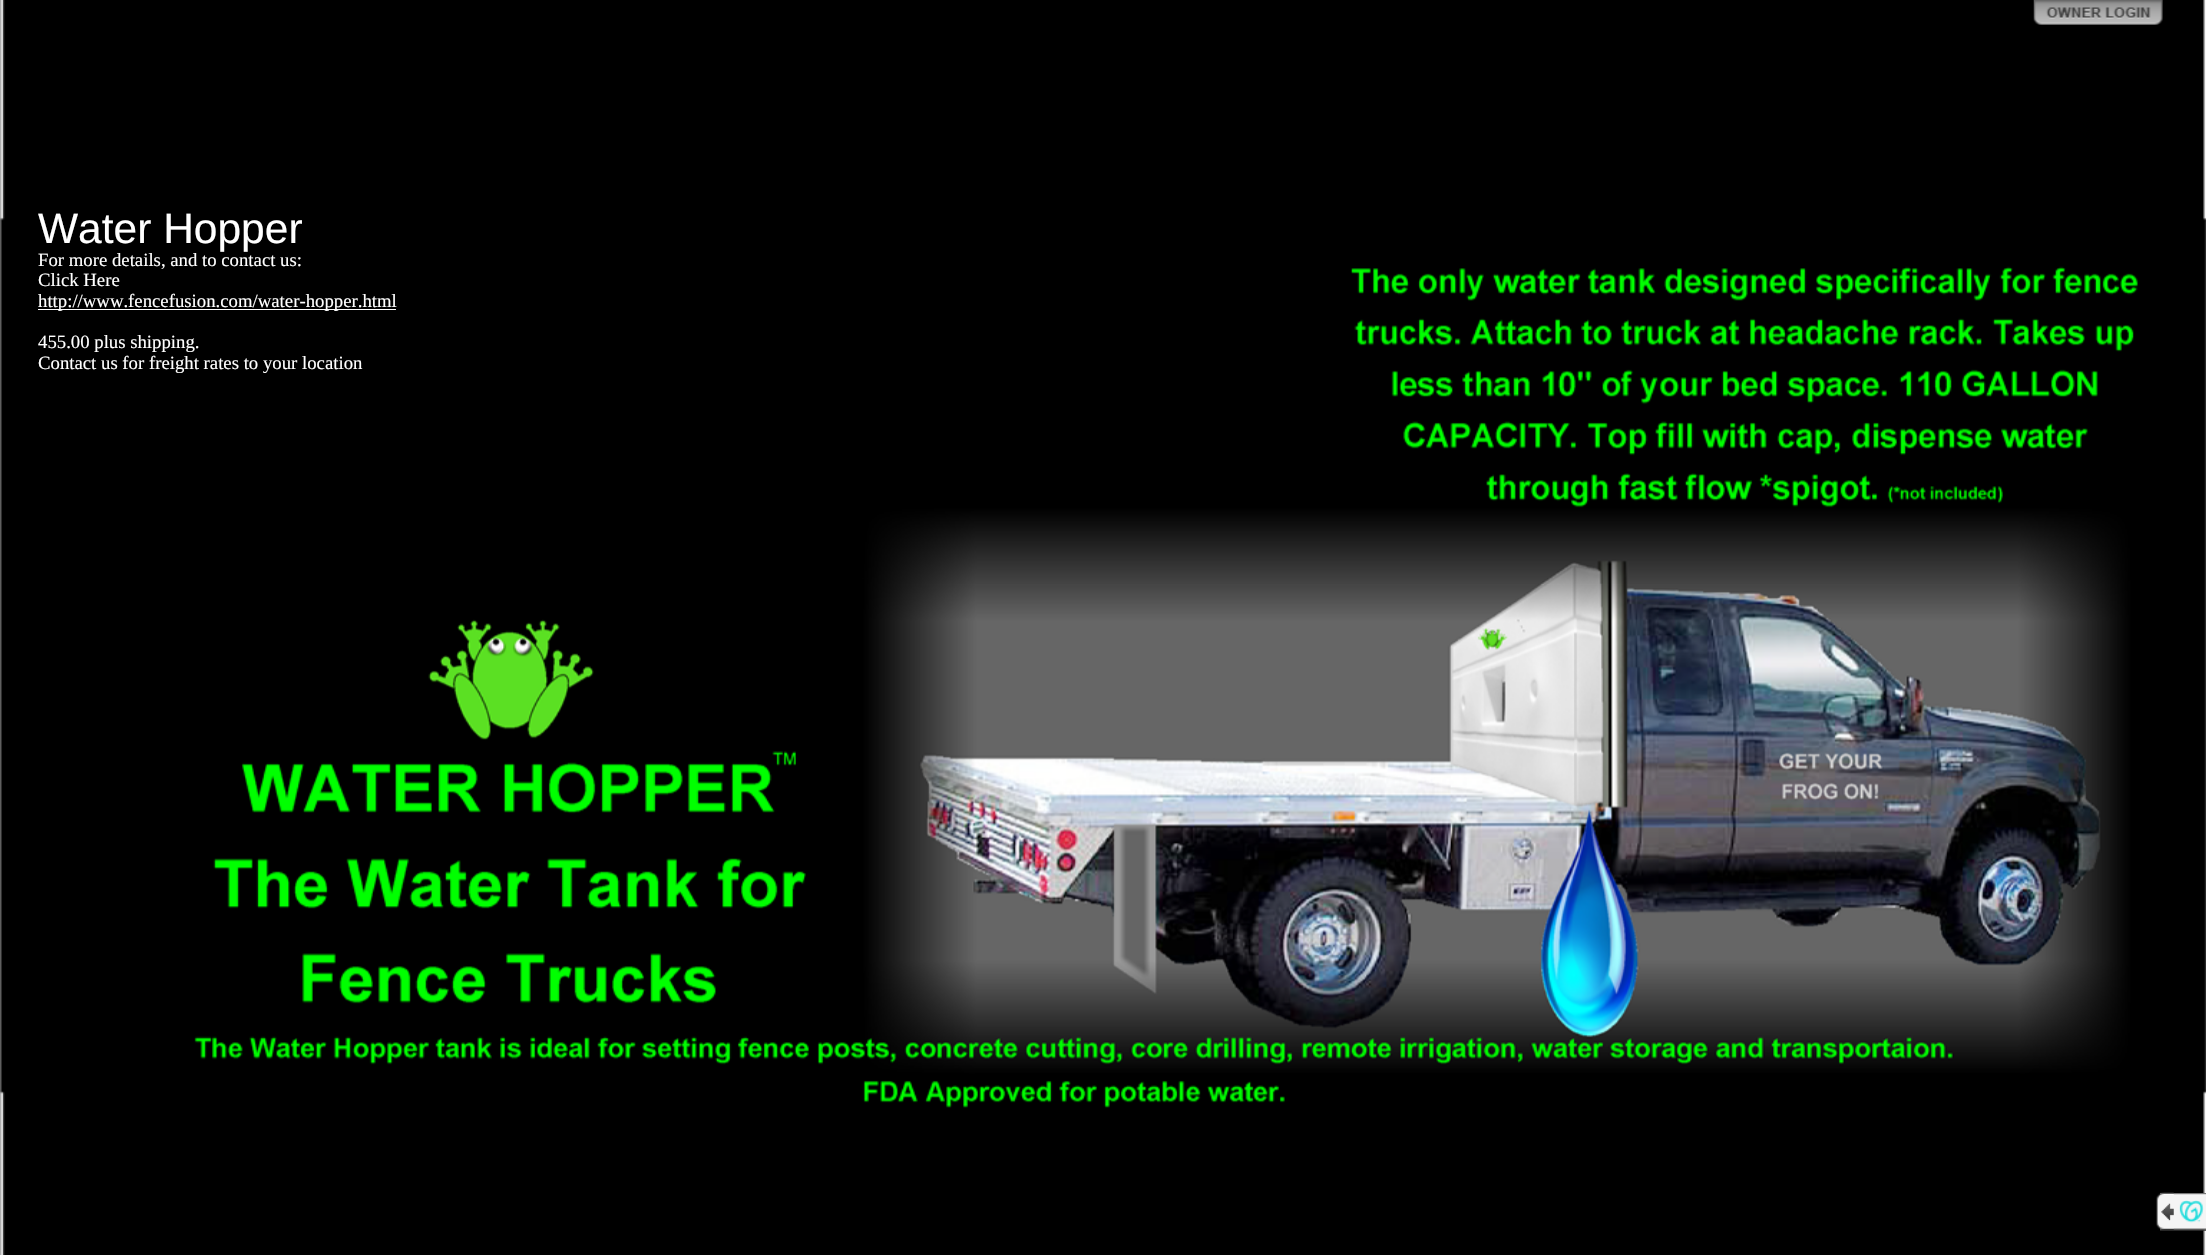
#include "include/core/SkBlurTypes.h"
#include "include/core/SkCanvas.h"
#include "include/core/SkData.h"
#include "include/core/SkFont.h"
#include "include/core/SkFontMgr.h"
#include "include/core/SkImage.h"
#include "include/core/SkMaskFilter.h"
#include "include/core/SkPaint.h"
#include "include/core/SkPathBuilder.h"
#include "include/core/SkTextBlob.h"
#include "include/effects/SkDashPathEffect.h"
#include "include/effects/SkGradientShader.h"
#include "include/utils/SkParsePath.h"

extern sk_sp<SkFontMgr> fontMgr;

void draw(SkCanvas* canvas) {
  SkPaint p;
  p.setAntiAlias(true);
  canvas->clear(SK_ColorBLACK);
  canvas->drawImageRect(SkImages::DeferredFromEncodedData(SkData::MakeFromFileName("images/1.png")), SkRect::MakeLTRB(0, 0, 2206, 1255), SkSamplingOptions());
  canvas->drawImageRect(SkImages::DeferredFromEncodedData(SkData::MakeFromFileName("images/2.png")), SkRect::MakeLTRB(2033, 0, 2163, 25), SkSamplingOptions());
  p.setColor(SK_ColorWHITE);
  canvas->drawRect(SkRect::MakeLTRB(38, 309, 396, 310), p);
  canvas->drawImageRect(SkImages::DeferredFromEncodedData(SkData::MakeFromFileName("images/3.png")), SkRect::MakeLTRB(2160, 1193, 2206, 1231), SkSamplingOptions());
  canvas->drawImageRect(SkImages::DeferredFromEncodedData(SkData::MakeFromFileName("images/4.png")), SkRect::MakeLTRB(2160, 1229, 2206, 1231), SkSamplingOptions());
  canvas->drawImageRect(SkImages::DeferredFromEncodedData(SkData::MakeFromFileName("images/5.png")), SkRect::MakeLTRB(2156, 1192, 2174, 1230), SkSamplingOptions());
  canvas->drawImageRect(SkImages::DeferredFromEncodedData(SkData::MakeFromFileName("images/6.png")), SkRect::MakeLTRB(2179, 1200, 2204, 1223), SkSamplingOptions());
  SkFont font1(fontMgr->matchFamilyStyle("Liberation Sans", SkFontStyle::Normal()), 42.5f);
  font1.setSubpixel(true);
  canvas->drawString("Water Hopper", 38, 243, font1, p);
  SkFont font2(fontMgr->matchFamilyStyle("Liberation Serif", SkFontStyle::Normal()), 18.75f);
  font2.setSubpixel(true);
  canvas->drawString("For more details, and to contact us:", 38, 266, font2, p);
  canvas->drawString("Click Here", 38, 286, font2, p);
  canvas->drawString("http://www.fencefusion.com/water-hopper.html", 38, 307, font2, p);
  canvas->drawString("455.00 plus shipping.", 38, 348, font2, p);
  canvas->drawString("Contact us for freight rates to your location", 38, 369, font2, p);
}
